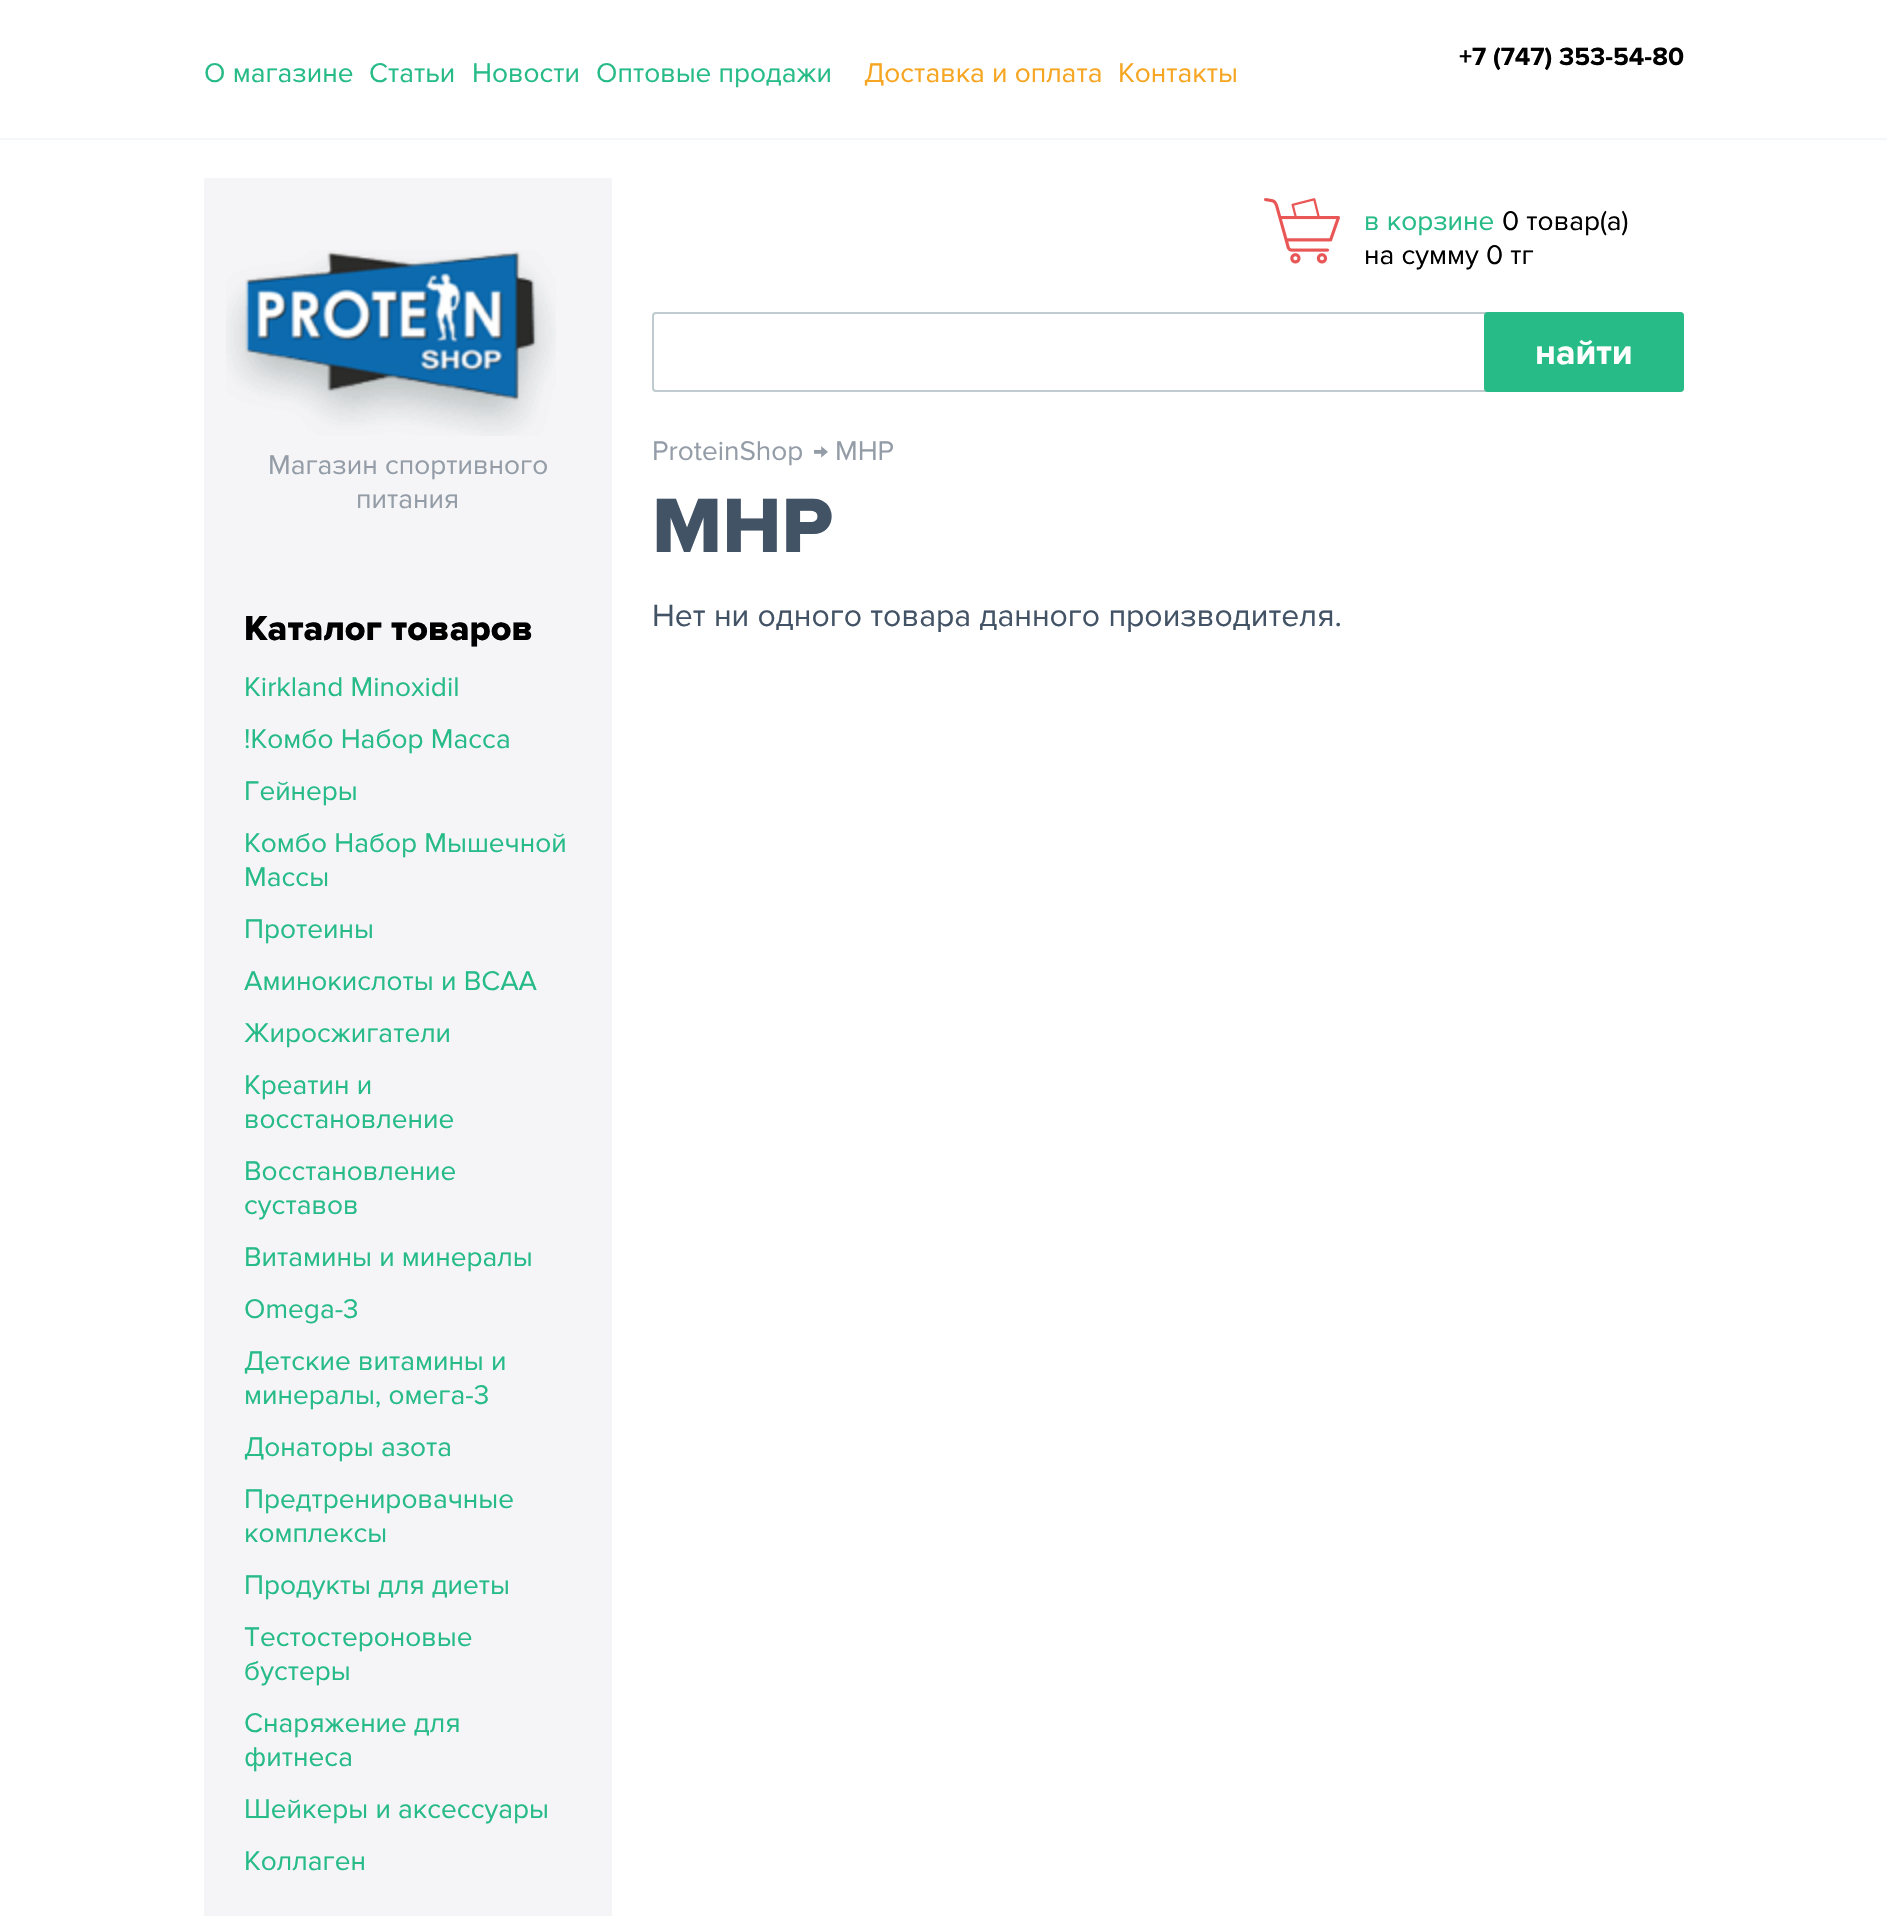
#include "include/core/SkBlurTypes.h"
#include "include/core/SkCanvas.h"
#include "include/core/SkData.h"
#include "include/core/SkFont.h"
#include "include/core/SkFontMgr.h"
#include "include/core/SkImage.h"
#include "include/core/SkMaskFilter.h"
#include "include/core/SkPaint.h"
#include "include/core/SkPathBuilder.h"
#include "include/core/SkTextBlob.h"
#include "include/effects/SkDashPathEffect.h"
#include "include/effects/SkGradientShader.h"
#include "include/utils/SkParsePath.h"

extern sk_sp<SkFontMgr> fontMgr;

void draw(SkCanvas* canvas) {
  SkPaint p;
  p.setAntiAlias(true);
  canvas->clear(SK_ColorWHITE);
  p.setColor(SkColorSetRGB(244, 247, 250));
  canvas->drawRect(SkRect::MakeLTRB(0, 138, 1887, 140), p);
  p.setColor(SkColorSetRGB(245, 245, 247));
  canvas->drawRect(SkRect::MakeLTRB(204, 178, 612, 1916), p);
  canvas->drawImageRect(SkImages::DeferredFromEncodedData(SkData::MakeFromFileName("images/1.png")), SkRect::MakeLTRB(226, 250, 556, 436), SkSamplingOptions());
  canvas->drawImageRect(SkImages::DeferredFromEncodedData(SkData::MakeFromFileName("images/2.png")), SkRect::MakeLTRB(1264, 198, 1340, 264), SkSamplingOptions());
  p.setStyle(SkPaint::kStroke_Style);
  p.setStrokeWidth(2);
  p.setColor(SkColorSetRGB(192, 203, 208));
  canvas->drawRoundRect(SkRect::MakeLTRB(653, 313, 1683, 391), 3, 3, p);
  p.setStyle(SkPaint::kFill_Style);
  p.setColor(SkColorSetRGB(38, 187, 135));
  canvas->drawRoundRect(SkRect::MakeLTRB(1484, 312, 1684, 392), 4, 4, p);
  canvas->drawImageRect(SkImages::DeferredFromEncodedData(SkData::MakeFromFileName("images/3.png")), SkRect::MakeLTRB(814, 446, 828, 458), SkSamplingOptions());
  SkFont font1(fontMgr->matchFamilyStyle("Proxima Nova", SkFontStyle::Bold()), 26);
  font1.setSubpixel(true);
  p.setColor(SK_ColorBLACK);
  canvas->drawString("+7 (747) 353-54-80", 1459, 65, font1, p);
  SkFont font2(fontMgr->matchFamilyStyle("Proxima Nova", SkFontStyle::Normal()), 28);
  font2.setSubpixel(true);
  p.setColor(SkColorSetRGB(38, 187, 135));
  canvas->drawString("О магазине", 204, 82, font2, p);
  canvas->drawString("Статьи", 369, 82, font2, p);
  canvas->drawString("Новости", 472, 82, font2, p);
  canvas->drawString("Оптовые продажи", 596, 82, font2, p);
  p.setColor(SkColorSetRGB(246, 166, 35));
  canvas->drawString("Доставка и оплата", 864, 82, font2, p);
  canvas->drawString("Контакты", 1118, 82, font2, p);
  p.setColor(SkColorSetRGB(148, 157, 167));
  canvas->drawString("Магазин спортивного", 268, 474, font2, p);
  canvas->drawString("питания", 356, 508, font2, p);
  SkFont font3(fontMgr->matchFamilyStyle("Proxima Nova", SkFontStyle(800, SkFontStyle::kNormal_Width, SkFontStyle::kUpright_Slant)), 36);
  font3.setSubpixel(true);
  p.setColor(SK_ColorBLACK);
  canvas->drawString("Каталог товаров", 244, 640, font3, p);
  p.setColor(SkColorSetRGB(38, 187, 135));
  canvas->drawString("Kirkland Minoxidil", 244, 696, font2, p);
  canvas->drawString("!Комбо Набор Масса", 244, 748, font2, p);
  canvas->drawString("Гейнеры", 244, 800, font2, p);
  canvas->drawString("Комбо Набор Мышечной", 244, 852, font2, p);
  canvas->drawString("Массы", 244, 886, font2, p);
  canvas->drawString("Протеины", 244, 938, font2, p);
  canvas->drawString("Аминокислоты и BCAA", 244, 990, font2, p);
  canvas->drawString("Жиросжигатели", 244, 1042, font2, p);
  canvas->drawString("Креатин и", 244, 1094, font2, p);
  canvas->drawString("восстановление", 244, 1128, font2, p);
  canvas->drawString("Восстановление", 244, 1180, font2, p);
  canvas->drawString("суставов", 244, 1214, font2, p);
  canvas->drawString("Витамины и минералы", 244, 1266, font2, p);
  canvas->drawString("Omega-3", 244, 1318, font2, p);
  canvas->drawString("Детские витамины и", 244, 1370, font2, p);
  canvas->drawString("минералы, омега-3", 244, 1404, font2, p);
  canvas->drawString("Донаторы азота", 244, 1456, font2, p);
  canvas->drawString("Предтренировачные", 244, 1508, font2, p);
  canvas->drawString("комплексы", 244, 1542, font2, p);
  canvas->drawString("Продукты для диеты", 244, 1594, font2, p);
  canvas->drawString("Тестостероновые", 244, 1646, font2, p);
  canvas->drawString("бустеры", 244, 1680, font2, p);
  canvas->drawString("Снаряжение для", 244, 1732, font2, p);
  canvas->drawString("фитнеса", 244, 1766, font2, p);
  canvas->drawString("Шейкеры и аксессуары", 244, 1818, font2, p);
  canvas->drawString("Коллаген", 244, 1870, font2, p);
  canvas->drawString("в корзине", 1364, 230, font2, p);
  p.setColor(SK_ColorBLACK);
  canvas->drawString("0 товар(а)", 1502, 230, font2, p);
  canvas->drawString("на сумму 0 тг", 1364, 264, font2, p);
  SkFont font4(fontMgr->matchFamilyStyle("Proxima Nova", SkFontStyle::Bold()), 36);
  font4.setSubpixel(true);
  p.setColor(SK_ColorWHITE);
  canvas->drawString("найти", 1535, 364, font4, p);
  p.setColor(SkColorSetRGB(148, 157, 167));
  canvas->drawString("ProteinShop", 652, 460, font2, p);
  canvas->drawString("MHP", 835, 460, font2, p);
  SkFont font5(fontMgr->matchFamilyStyle("Proxima Nova", SkFontStyle(800, SkFontStyle::kNormal_Width, SkFontStyle::kUpright_Slant)), 80);
  font5.setSubpixel(true);
  p.setColor(SkColorSetRGB(67, 83, 102));
  canvas->drawString("MHP", 652, 552, font5, p);
  SkFont font6(fontMgr->matchFamilyStyle("Proxima Nova", SkFontStyle::Normal()), 32);
  font6.setSubpixel(true);
  canvas->drawString("Нет ни одного товара данного производителя.", 652, 626, font6, p);
}
